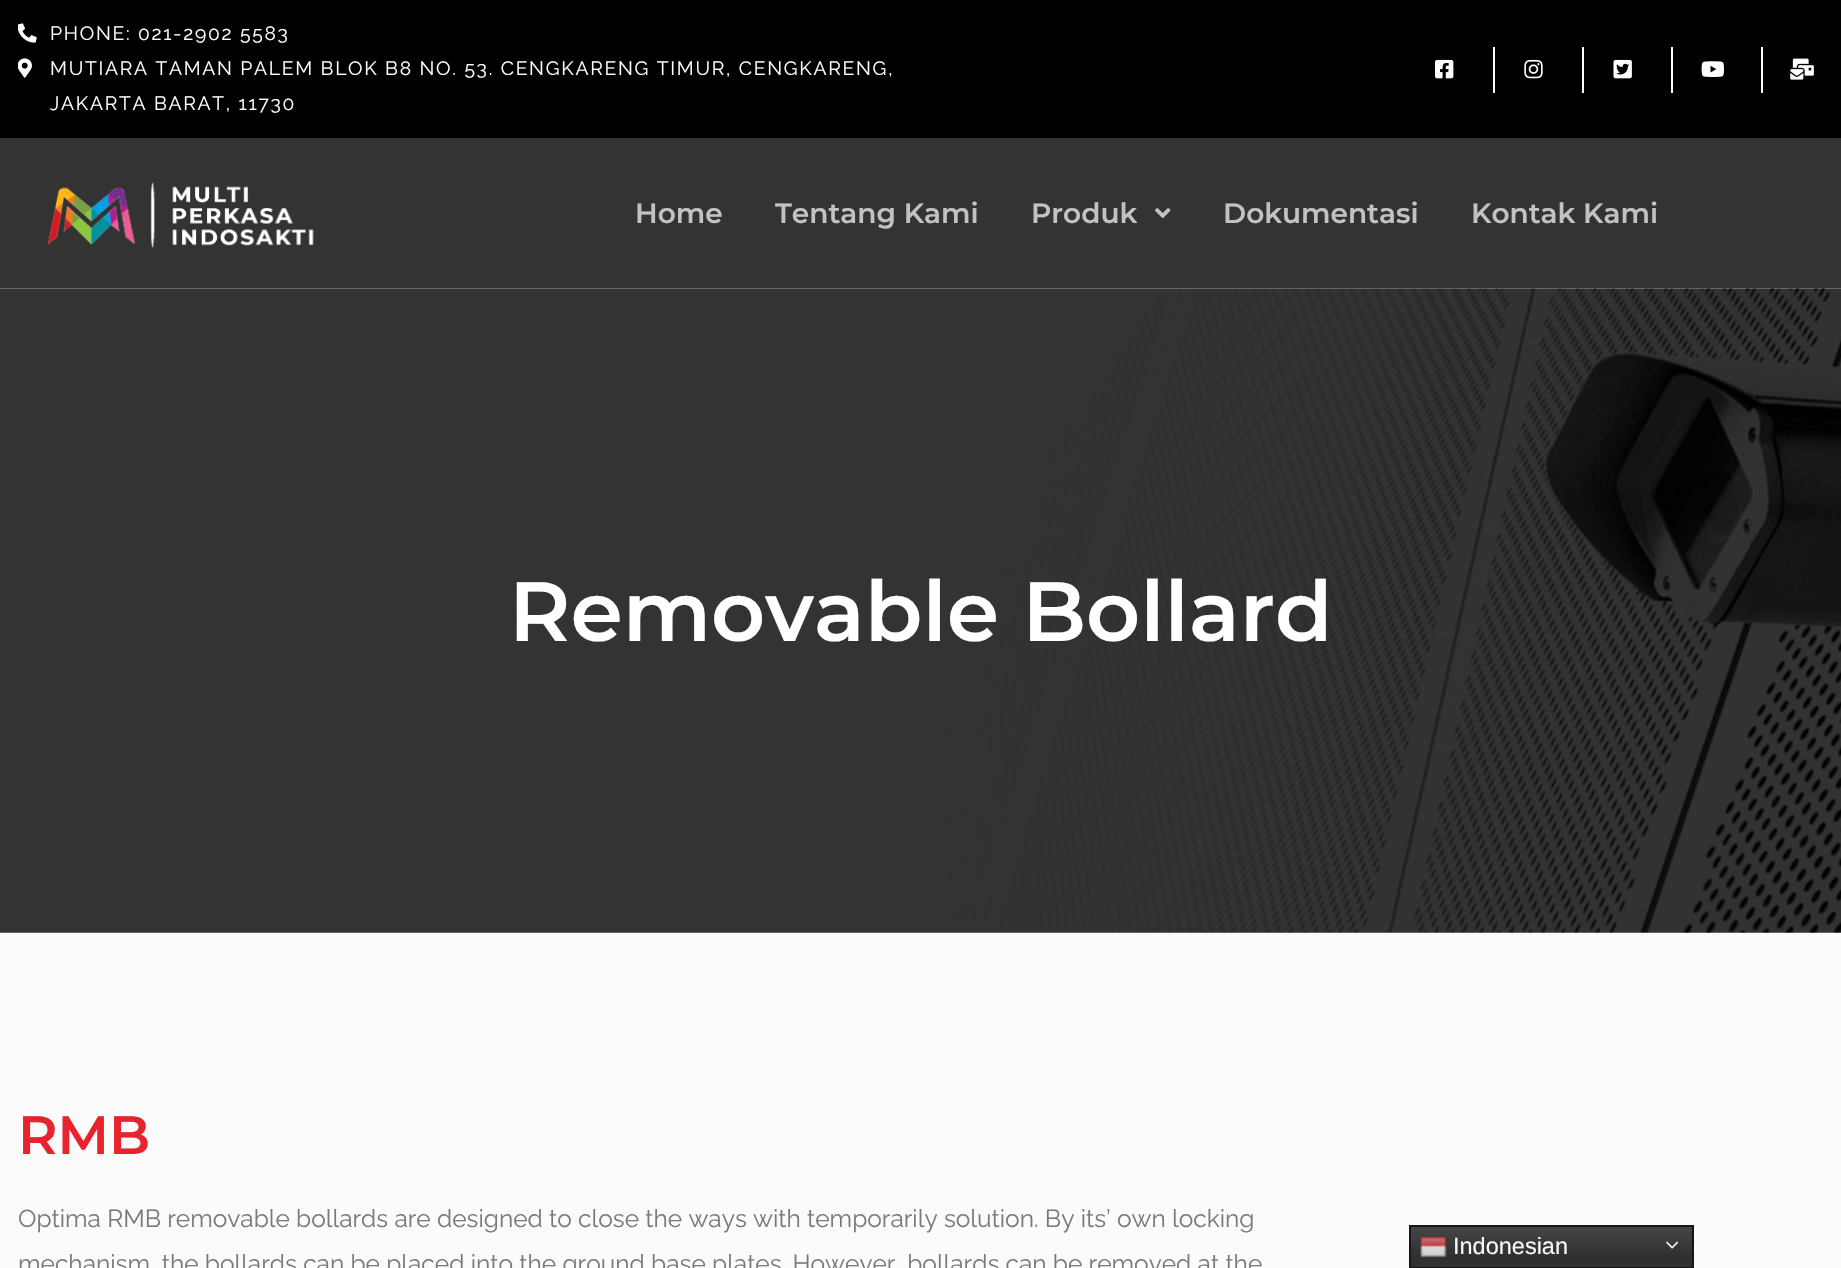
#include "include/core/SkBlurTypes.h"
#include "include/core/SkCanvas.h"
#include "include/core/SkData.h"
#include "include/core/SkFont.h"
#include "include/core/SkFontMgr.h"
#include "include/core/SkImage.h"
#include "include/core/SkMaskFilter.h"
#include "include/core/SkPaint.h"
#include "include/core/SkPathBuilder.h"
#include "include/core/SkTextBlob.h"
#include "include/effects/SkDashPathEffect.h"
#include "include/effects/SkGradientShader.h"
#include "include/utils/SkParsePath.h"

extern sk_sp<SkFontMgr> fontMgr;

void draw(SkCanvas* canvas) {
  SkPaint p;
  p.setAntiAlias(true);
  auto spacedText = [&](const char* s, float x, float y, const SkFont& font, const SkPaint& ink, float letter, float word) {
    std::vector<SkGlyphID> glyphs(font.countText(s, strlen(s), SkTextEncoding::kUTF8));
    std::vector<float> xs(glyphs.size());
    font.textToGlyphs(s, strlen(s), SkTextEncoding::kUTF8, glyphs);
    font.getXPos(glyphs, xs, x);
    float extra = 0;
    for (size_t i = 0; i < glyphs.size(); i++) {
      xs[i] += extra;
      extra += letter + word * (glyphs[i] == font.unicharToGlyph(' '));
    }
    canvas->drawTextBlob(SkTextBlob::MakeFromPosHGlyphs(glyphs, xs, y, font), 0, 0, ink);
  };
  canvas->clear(SK_ColorWHITE);
  p.setColor(SK_ColorBLACK);
  canvas->drawRect(SkRect::MakeLTRB(0, 0, 1841, 138), p);
  canvas->drawImageRect(SkImages::DeferredFromEncodedData(SkData::MakeFromFileName("images/1.png")), SkRect::MakeLTRB(18, 23, 37, 43), SkSamplingOptions());
  canvas->drawImageRect(SkImages::DeferredFromEncodedData(SkData::MakeFromFileName("images/2.png")), SkRect::MakeLTRB(18, 58, 32, 78), SkSamplingOptions());
  canvas->drawImageRect(SkImages::DeferredFromEncodedData(SkData::MakeFromFileName("images/3.png")), SkRect::MakeLTRB(1435, 59, 1454, 79), SkSamplingOptions());
  p.setColor(SK_ColorWHITE);
  canvas->drawRect(SkRect::MakeLTRB(1493, 47, 1495, 93), p);
  canvas->drawImageRect(SkImages::DeferredFromEncodedData(SkData::MakeFromFileName("images/4.png")), SkRect::MakeLTRB(1524, 59, 1543, 79), SkSamplingOptions());
  canvas->drawRect(SkRect::MakeLTRB(1582, 47, 1584, 93), p);
  canvas->drawImageRect(SkImages::DeferredFromEncodedData(SkData::MakeFromFileName("images/5.png")), SkRect::MakeLTRB(1613, 59, 1632, 79), SkSamplingOptions());
  canvas->drawRect(SkRect::MakeLTRB(1671, 47, 1673, 93), p);
  canvas->drawImageRect(SkImages::DeferredFromEncodedData(SkData::MakeFromFileName("images/6.png")), SkRect::MakeLTRB(1701, 61, 1724, 77), SkSamplingOptions());
  canvas->drawRect(SkRect::MakeLTRB(1761, 47, 1763, 93), p);
  canvas->drawImageRect(SkImages::DeferredFromEncodedData(SkData::MakeFromFileName("images/7.png")), SkRect::MakeLTRB(1790, 58, 1814, 80), SkSamplingOptions());
  p.setColor(SkColorSetRGB(51, 51, 51));
  canvas->drawRect(SkRect::MakeLTRB(0, 138, 1841, 289), p);
  canvas->drawImageRect(SkImages::DeferredFromEncodedData(SkData::MakeFromFileName("images/8.png")), SkRect::MakeLTRB(47, 182, 314, 248), SkSamplingOptions());
  canvas->drawImageRect(SkImages::DeferredFromEncodedData(SkData::MakeFromFileName("images/9.png")), SkRect::MakeLTRB(1155, 208, 1171, 218), SkSamplingOptions());
  canvas->drawImageRect(SkImages::DeferredFromEncodedData(SkData::MakeFromFileName("images/10.png")), SkRect::MakeLTRB(0, 288, 1841, 933), SkSamplingOptions());
  p.setColor(SkColorSetRGB(251, 251, 251));
  canvas->drawRect(SkRect::MakeLTRB(0, 933, 1841, 1268), p);
  {
    const SkColor colors[] = {SkColorSetRGB(71, 71, 71), SkColorSetRGB(48, 48, 48)};
    const float stops[] = {0, 0.7f};
    const SkPoint ends[] = {{1551, 1225}, {1551, 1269}};
    p.setShader(SkGradientShader::MakeLinear(ends, colors, stops, 2, SkTileMode::kClamp));
    p.setAlpha(255);
  }
  canvas->drawRect(SkRect::MakeLTRB(1411, 1227, 1692, 1267), p);
  p.setStyle(SkPaint::kStroke_Style);
  p.setStrokeWidth(2);
  p.setShader(nullptr);
  p.setColor(SkColorSetRGB(22, 22, 22));
  canvas->drawRect(SkRect::MakeLTRB(1410, 1226, 1693, 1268), p);
  canvas->drawImageRect(SkImages::DeferredFromEncodedData(SkData::MakeFromFileName("images/11.png")), SkRect::MakeLTRB(1420, 1236, 1447, 1258), SkSamplingOptions());
  canvas->drawImageRect(SkImages::DeferredFromEncodedData(SkData::MakeFromFileName("images/12.png")), SkRect::MakeLTRB(1666, 1241, 1678, 1249), SkSamplingOptions());
  SkFont font1(fontMgr->matchFamilyStyle("Raleway", SkFontStyle::Normal()), 19.25f);
  font1.setSubpixel(true);
  p.setStyle(SkPaint::kFill_Style);
  p.setColor(SK_ColorWHITE);
  spacedText("PHONE: 021-2902 5583", 50, 40, font1, p, 1.75f, 0);
  spacedText("MUTIARA TAMAN PALEM BLOK B8 NO. 53. CENGKARENG TIMUR, CENGKARENG,", 50, 75, font1, p, 1.75f, 0);
  spacedText("JAKARTA BARAT, 11730", 50, 110, font1, p, 1.75f, 0);
  SkFont font2(fontMgr->matchFamilyStyle("Montserrat", SkFontStyle(600, SkFontStyle::kNormal_Width, SkFontStyle::kUpright_Slant)), 28);
  font2.setSubpixel(true);
  p.setColor(SkColorSetRGB(194, 194, 194));
  canvas->drawString("Home", 635, 223, font2, p);
  canvas->drawString("Tentang Kami", 775, 223, font2, p);
  canvas->drawString("Produk", 1031, 223, font2, p);
  canvas->drawString("Dokumentasi", 1223, 223, font2, p);
  canvas->drawString("Kontak Kami", 1471, 223, font2, p);
  SkFont font3(fontMgr->matchFamilyStyle("Montserrat", SkFontStyle(600, SkFontStyle::kNormal_Width, SkFontStyle::kUpright_Slant)), 84);
  font3.setSubpixel(true);
  p.setColor(SK_ColorWHITE);
  canvas->drawString("Removable Bollard", 509, 641, font3, p);
  SkFont font4(fontMgr->matchFamilyStyle("Montserrat", SkFontStyle(600, SkFontStyle::kNormal_Width, SkFontStyle::kUpright_Slant)), 54);
  font4.setSubpixel(true);
  p.setColor(SkColorSetRGB(231, 35, 46));
  canvas->drawString("RMB", 18, 1154, font4, p);
  SkFont font5(fontMgr->matchFamilyStyle("Raleway", SkFontStyle::Normal()), 24.5f);
  font5.setSubpixel(true);
  p.setColor(SkColorSetRGB(122, 122, 122));
  canvas->drawString("Optima RMB removable bollards are designed to close the ways with temporarily solution. By its’ own locking", 18, 1227, font5, p);
  canvas->drawString("mechanism, the bollards can be placed into the ground base plates. However, bollards can be removed at the", 18, 1272, font5, p);
  SkFont font6(fontMgr->matchFamilyStyle("Liberation Sans", SkFontStyle::Normal()), 23.5f);
  font6.setSubpixel(true);
  p.setColor(SkColorSetRGB(247, 247, 247));
  canvas->drawString("Indonesian", 1453, 1254, font6, p);
}
